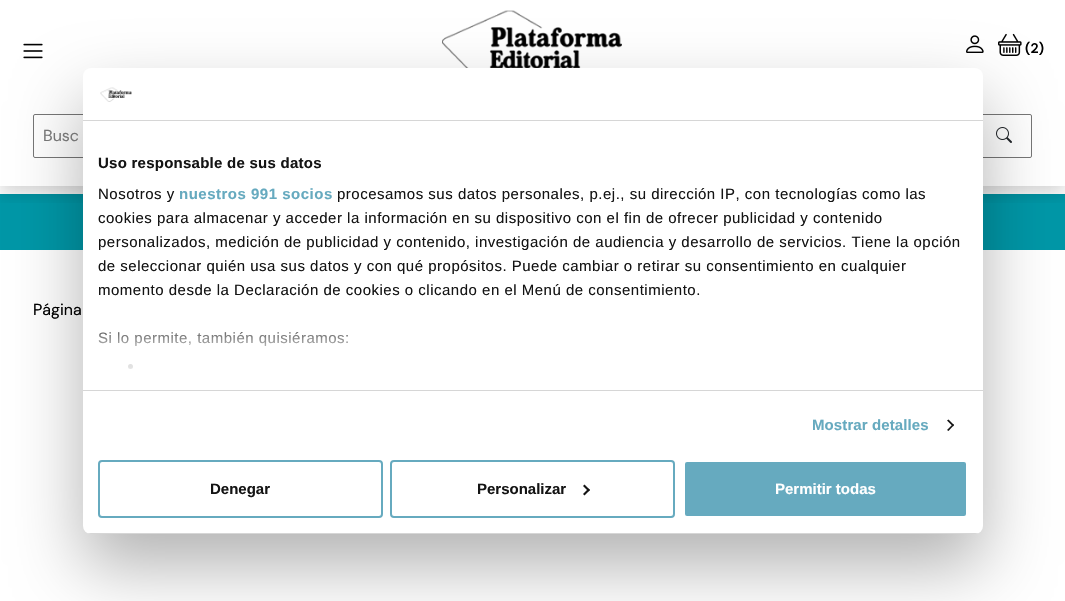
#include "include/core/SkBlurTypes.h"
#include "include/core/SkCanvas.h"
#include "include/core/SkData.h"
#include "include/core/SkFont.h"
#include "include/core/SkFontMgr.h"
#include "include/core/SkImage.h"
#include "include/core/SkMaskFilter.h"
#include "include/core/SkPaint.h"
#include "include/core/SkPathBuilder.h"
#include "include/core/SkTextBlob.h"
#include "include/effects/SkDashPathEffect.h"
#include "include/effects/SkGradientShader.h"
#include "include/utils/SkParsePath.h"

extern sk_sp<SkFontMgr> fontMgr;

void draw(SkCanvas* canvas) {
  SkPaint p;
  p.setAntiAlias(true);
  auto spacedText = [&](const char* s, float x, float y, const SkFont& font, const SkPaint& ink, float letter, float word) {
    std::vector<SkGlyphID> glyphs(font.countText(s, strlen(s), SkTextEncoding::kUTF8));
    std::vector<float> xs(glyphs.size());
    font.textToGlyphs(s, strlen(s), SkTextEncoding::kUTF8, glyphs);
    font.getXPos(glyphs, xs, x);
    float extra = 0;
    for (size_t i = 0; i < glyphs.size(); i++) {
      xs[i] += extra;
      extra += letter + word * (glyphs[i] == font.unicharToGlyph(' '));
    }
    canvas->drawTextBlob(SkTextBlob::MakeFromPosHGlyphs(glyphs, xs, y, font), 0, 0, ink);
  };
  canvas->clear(SK_ColorWHITE);
  p.setColor(SkColorSetRGB(0, 151, 167));
  canvas->drawRect(SkRect::MakeLTRB(0, 194, 1065, 250), p);
  canvas->save();
  canvas->clipRect(SkRect::MakeLTRB(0, 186, 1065, 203));
  p.setColor(SkColorSetARGB(38, 0, 0, 0));
  p.setMaskFilter(SkMaskFilter::MakeBlur(kNormal_SkBlurStyle, 8));
  canvas->drawRect(SkRect::MakeLTRB(0, 8, 1065, 194), p);
  p.setMaskFilter(nullptr);
  canvas->restore();
  canvas->drawImageRect(SkImages::DeferredFromEncodedData(SkData::MakeFromFileName("images/1.png")), SkRect::MakeLTRB(23, 43, 43, 59), SkSamplingOptions());
  canvas->drawImageRect(SkImages::DeferredFromEncodedData(SkData::MakeFromFileName("images/2.png")), SkRect::MakeLTRB(442, 10, 622, 68), SkSamplingOptions());
  canvas->drawImageRect(SkImages::DeferredFromEncodedData(SkData::MakeFromFileName("images/3.png")), SkRect::MakeLTRB(966, 35, 984, 53), SkSamplingOptions());
  canvas->drawImageRect(SkImages::DeferredFromEncodedData(SkData::MakeFromFileName("images/4.png")), SkRect::MakeLTRB(998, 33, 1022, 56), SkSamplingOptions());
  p.setStyle(SkPaint::kStroke_Style);
  p.setStrokeWidth(1);
  p.setColor(SkColorSetRGB(118, 118, 118));
  canvas->drawRoundRect(SkRect::MakeLTRB(33.5f, 114.5f, 1031.5f, 157.5f), 1.5f, 1.5f, p);
  canvas->drawImageRect(SkImages::DeferredFromEncodedData(SkData::MakeFromFileName("images/5.png")), SkRect::MakeLTRB(996, 127, 1012, 143), SkSamplingOptions());
  p.setStyle(SkPaint::kFill_Style);
  p.setColor(SkColorSetARGB(77, 0, 0, 0));
  p.setMaskFilter(SkMaskFilter::MakeBlur(kNormal_SkBlurStyle, 34));
  canvas->drawRoundRect(SkRect::MakeLTRB(83, 100, 983, 566), 8, 8, p);
  p.setMaskFilter(nullptr);
  p.setColor(SK_ColorWHITE);
  canvas->drawRoundRect(SkRect::MakeLTRB(83, 68, 983, 534), 8, 8, p);
  p.setColor(SkColorSetRGB(214, 214, 214));
  canvas->drawRect(SkRect::MakeLTRB(83, 120, 983, 121), p);
  canvas->drawImageRect(SkImages::DeferredFromEncodedData(SkData::MakeFromFileName("images/6.png")), SkRect::MakeLTRB(100, 87, 132, 102), SkSamplingOptions());
  canvas->drawRect(SkRect::MakeLTRB(83, 390, 983, 391), p);
  p.setColor(SkColorSetRGB(20, 20, 20));
  canvas->drawCircle(130.5f, 366.5f, 2.5f, p);
  canvas->drawPath(SkPathBuilder().moveTo(948.5f, 419.5f).lineTo(954, 425).lineTo(953, 426.5f).lineTo(947, 420.5f).close().detach(), p);
  canvas->drawPath(SkPathBuilder().moveTo(953, 424).lineTo(954, 425).lineTo(948.5f, 431).lineTo(947, 430).close().detach(), p);
  canvas->save();
  canvas->clipPath(SkPathBuilder().moveTo(91, 68).lineTo(975, 68).cubicTo(979.5f, 68, 983, 71.5f, 983, 76).lineTo(983, 526).cubicTo(983, 530.5f, 979.5f, 534, 975, 534).lineTo(91, 534).cubicTo(86.5f, 534, 83, 530.5f, 83, 526).lineTo(83, 76).cubicTo(83, 71.5f, 86.5f, 68, 91, 68).close().detach(), true);
  p.setColor(SkColorSetRGB(214, 214, 214));
  canvas->drawRect(SkRect::MakeLTRB(83, 533, 983, 534), p);
  canvas->restore();
  p.setStyle(SkPaint::kStroke_Style);
  p.setStrokeWidth(2);
  p.setColor(SkColorSetRGB(102, 170, 191));
  canvas->drawRoundRect(SkRect::MakeLTRB(99, 461, 382, 517), 3, 3, p);
  canvas->drawRoundRect(SkRect::MakeLTRB(391, 461, 674, 517), 3, 3, p);
  p.setStyle(SkPaint::kFill_Style);
  p.setColor(SkColorSetRGB(20, 20, 20));
  canvas->drawPath(SkPathBuilder().moveTo(584.5f, 484.5f).lineTo(590, 490).lineTo(588.5f, 491.5f).lineTo(583, 486).close().detach(), p);
  canvas->drawPath(SkPathBuilder().moveTo(588.5f, 488.5f).lineTo(590, 490).lineTo(584.5f, 495.5f).lineTo(583, 494).close().detach(), p);
  p.setColor(SkColorSetRGB(102, 170, 191));
  canvas->drawRoundRect(SkRect::MakeLTRB(684, 461, 967, 517), 3, 3, p);
  p.setStyle(SkPaint::kStroke_Style);
  p.setColor(SK_ColorWHITE);
  canvas->drawRoundRect(SkRect::MakeLTRB(684, 461, 967, 517), 3, 3, p);
  SkFont font1(fontMgr->matchFamilyStyle("DM Sans", SkFontStyle(600, SkFontStyle::kNormal_Width, SkFontStyle::kUpright_Slant)), 14);
  font1.setSubpixel(true);
  p.setStyle(SkPaint::kFill_Style);
  p.setColor(SK_ColorBLACK);
  canvas->drawString("(2)", 1025, 53, font1, p);
  SkFont font2(fontMgr->matchFamilyStyle("DM Sans", SkFontStyle::Normal()), 16);
  font2.setSubpixel(true);
  p.setColor(SkColorSetRGB(117, 117, 117));
  canvas->drawString("Busc", 43, 141, font2, p);
  p.setColor(SK_ColorBLACK);
  canvas->drawString("Página", 33, 315, font2, p);
  SkFont font3(fontMgr->matchFamilyStyle("Liberation Sans", SkFontStyle::Bold()), 15);
  font3.setSubpixel(true);
  p.setColor(SkColorSetRGB(20, 20, 20));
  spacedText("Uso responsable de sus datos", 98, 168, font3, p, 0.25f, 0);
  SkFont font4(fontMgr->matchFamilyStyle("Liberation Sans", SkFontStyle::Normal()), 15);
  font4.setSubpixel(true);
  spacedText("Nosotros y", 98, 199, font4, p, 0.5f, 0);
  p.setColor(SkColorSetRGB(102, 170, 191));
  spacedText("nuestros 991 socios", 179, 199, font3, p, 0.5f, 0);
  p.setColor(SkColorSetRGB(20, 20, 20));
  spacedText("procesamos sus datos personales, p.ej., su dirección IP, con tecnologías como las", 337, 199, font4, p, 0.5f, 0);
  spacedText("cookies para almacenar y acceder la información en su dispositivo con el fin de ofrecer publicidad y contenido", 98, 223, font4, p, 0.5f, 0);
  spacedText("personalizados, medición de publicidad y contenido, investigación de audiencia y desarrollo de servicios. Tiene la opción", 98, 247, font4, p, 0.5f, 0);
  spacedText("de seleccionar quién usa sus datos y con qué propósitos. Puede cambiar o retirar su consentimiento en cualquier", 98, 271, font4, p, 0.5f, 0);
  spacedText("momento desde la Declaración de cookies o clicando en el Menú de consentimiento.", 98, 295, font4, p, 0.5f, 0);
  spacedText("Si lo permite, también quisiéramos:", 98, 343, font4, p, 0.5f, 0);
  {
    const SkColor colors[] = {SK_ColorWHITE, SkColorSetARGB(204, 255, 255, 255), SkColorSetARGB(0, 255, 255, 255)};
    const float stops[] = {0, 0.5f, 1};
    const SkPoint ends[] = {{527, 390}, {527, 315}};
    p.setShader(SkGradientShader::MakeLinear(ends, colors, stops, 3, SkTileMode::kClamp));
    p.setAlpha(255);
  }
  canvas->drawRect(SkRect::MakeLTRB(98, 331, 348, 369), p);
  p.setShader(nullptr);
  p.setColor(SkColorSetRGB(102, 170, 191));
  spacedText("Mostrar detalles", 812, 430, font3, p, 0.1f, 0);
  p.setColor(SkColorSetRGB(20, 20, 20));
  canvas->drawString("Denegar", 210, 494, font3, p);
  canvas->drawString("Personalizar", 477, 494, font3, p);
  p.setColor(SK_ColorWHITE);
  canvas->drawString("Permitir todas", 775, 494, font3, p);
}
